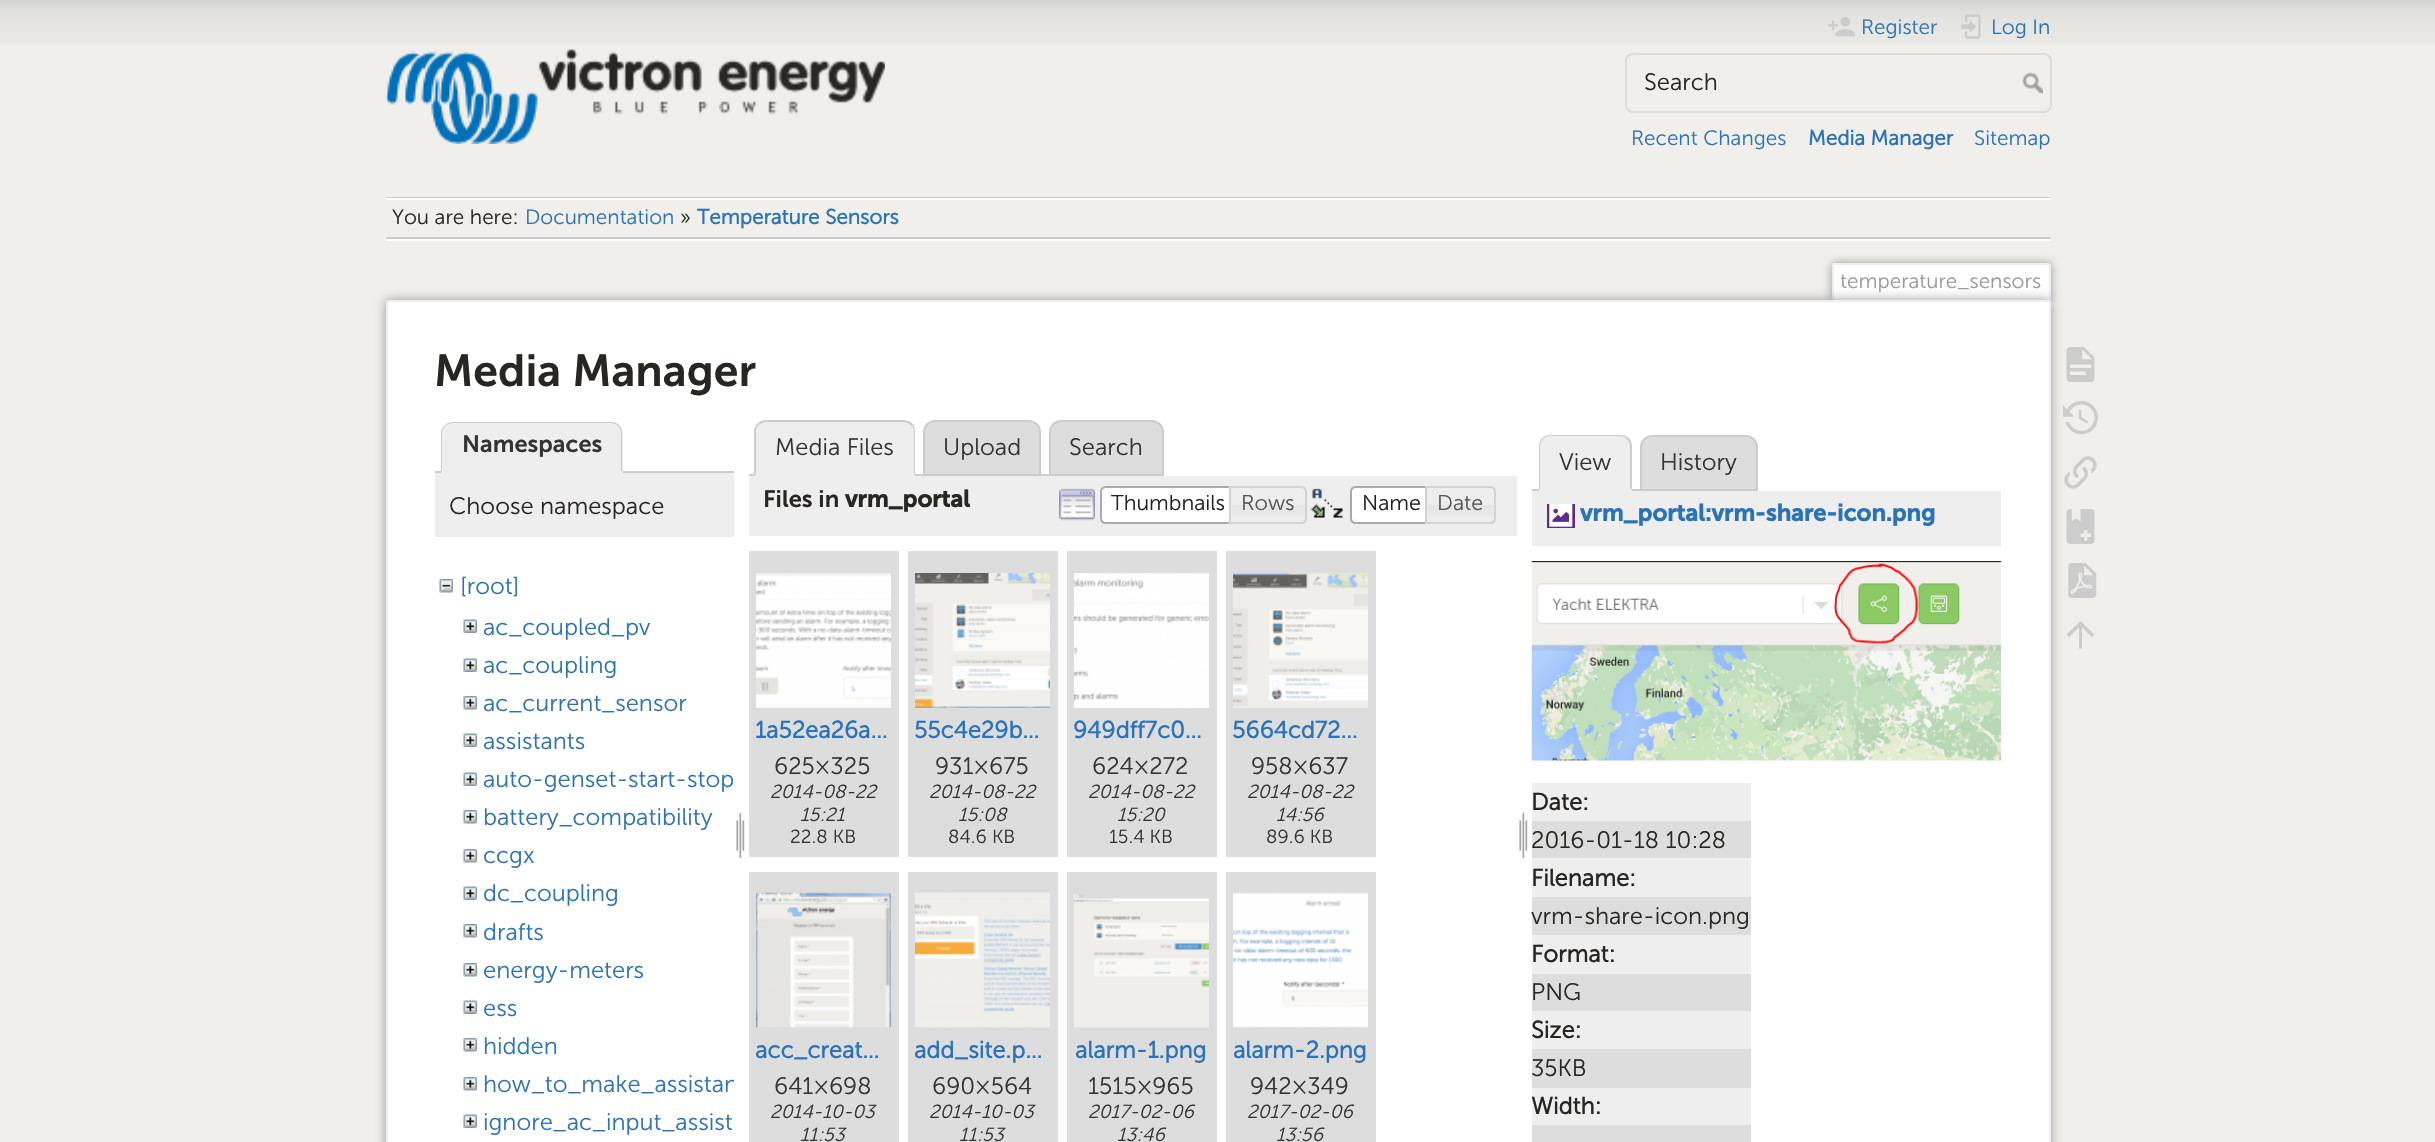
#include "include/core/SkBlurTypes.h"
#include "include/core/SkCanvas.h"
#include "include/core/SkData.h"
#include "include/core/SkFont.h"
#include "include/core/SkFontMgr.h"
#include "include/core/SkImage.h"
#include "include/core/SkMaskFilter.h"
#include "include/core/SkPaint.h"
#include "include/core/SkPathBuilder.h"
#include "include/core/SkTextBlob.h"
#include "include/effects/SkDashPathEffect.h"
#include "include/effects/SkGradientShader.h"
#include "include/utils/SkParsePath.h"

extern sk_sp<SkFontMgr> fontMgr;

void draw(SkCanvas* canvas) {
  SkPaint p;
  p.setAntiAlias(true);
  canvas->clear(SkColorSetRGB(240, 239, 235));
  canvas->drawImageRect(SkImages::DeferredFromEncodedData(SkData::MakeFromFileName("images/1.png")), SkRect::MakeLTRB(0, 0, 2435, 44), SkSamplingOptions());
  canvas->drawImageRect(SkImages::DeferredFromEncodedData(SkData::MakeFromFileName("images/2.png")), SkRect::MakeLTRB(385, 48, 885, 144), SkSamplingOptions());
  canvas->drawImageRect(SkImages::DeferredFromEncodedData(SkData::MakeFromFileName("images/3.png")), SkRect::MakeLTRB(1828, 17, 1855, 37), SkSamplingOptions());
  canvas->drawImageRect(SkImages::DeferredFromEncodedData(SkData::MakeFromFileName("images/4.png")), SkRect::MakeLTRB(1961, 14, 1981, 39), SkSamplingOptions());
  p.setStyle(SkPaint::kStroke_Style);
  p.setStrokeWidth(2);
  p.setColor(SkColorSetRGB(220, 219, 218));
  canvas->drawRoundRect(SkRect::MakeLTRB(1626, 54, 2051, 112), 7, 7, p);
  canvas->drawImageRect(SkImages::DeferredFromEncodedData(SkData::MakeFromFileName("images/5.png")), SkRect::MakeLTRB(2022, 72, 2043, 93), SkSamplingOptions());
  p.setStyle(SkPaint::kFill_Style);
  p.setColor(SkColorSetRGB(204, 204, 204));
  canvas->drawRect(SkRect::MakeLTRB(386, 197, 2051, 198), p);
  p.setColor(SK_ColorWHITE);
  canvas->drawRect(SkRect::MakeLTRB(386, 239, 2051, 241), p);
  canvas->drawRect(SkRect::MakeLTRB(386, 198, 2051, 200), p);
  p.setColor(SkColorSetRGB(204, 204, 204));
  canvas->drawRect(SkRect::MakeLTRB(386, 237, 2051, 239), p);
  canvas->save();
  canvas->clipRect(SkRect::MakeLTRB(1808, 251, 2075, 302));
  p.setColor(SkColorSetRGB(153, 153, 153));
  p.setMaskFilter(SkMaskFilter::MakeBlur(kNormal_SkBlurStyle, 5));
  canvas->drawRoundRect(SkRect::MakeLTRB(1832, 263, 2051, 302), 3, 3, p);
  p.setMaskFilter(nullptr);
  canvas->restore();
  p.setColor(SK_ColorWHITE);
  canvas->drawRect(SkRect::MakeLTRB(1834, 265, 2049, 301), p);
  p.setColor(SkColorSetRGB(238, 238, 238));
  canvas->drawRect(SkRect::MakeLTRB(1833, 263, 2049, 265), p);
  canvas->drawRect(SkRect::MakeLTRB(2049, 264, 2051, 302), p);
  canvas->drawRect(SkRect::MakeLTRB(1832, 264, 1834, 302), p);
  p.setColor(SkColorSetRGB(153, 153, 153));
  p.setMaskFilter(SkMaskFilter::MakeBlur(kNormal_SkBlurStyle, 6));
  canvas->drawRoundRect(SkRect::MakeLTRB(386, 300, 2051, 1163), 3, 3, p);
  p.setMaskFilter(nullptr);
  p.setColor(SK_ColorWHITE);
  canvas->drawRoundRect(SkRect::MakeLTRB(387, 301, 2050, 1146), 2, 2, p);
  p.setStyle(SkPaint::kStroke_Style);
  p.setColor(SkColorSetRGB(238, 238, 238));
  canvas->drawRoundRect(SkRect::MakeLTRB(387, 301, 2050, 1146), 2, 2, p);
  p.setStyle(SkPaint::kFill_Style);
  p.setColor(SkColorSetRGB(204, 204, 204));
  canvas->drawRect(SkRect::MakeLTRB(435, 471, 734, 473), p);
  p.setColor(SkColorSetRGB(238, 238, 238));
  canvas->drawPath(SkPathBuilder().moveTo(453, 422).lineTo(611, 422).cubicTo(617.5f, 422, 623, 427.5f, 623, 434).lineTo(623, 473).lineTo(441, 473).lineTo(441, 434).cubicTo(441, 427.5f, 446.5f, 422, 453, 422).close().detach(), p);
  p.setColor(SkColorSetRGB(204, 204, 204));
  canvas->drawPath(SkPathBuilder().moveTo(453, 422).cubicTo(450, 422, 447, 423, 445, 425).lineTo(445, 426).cubicTo(447, 424, 450, 423, 453, 423).lineTo(611, 423).cubicTo(614, 423, 616, 424, 618, 426).lineTo(619, 425).cubicTo(617, 423, 614, 422, 611, 422).close().detach(), p);
  canvas->drawPath(SkPathBuilder().moveTo(622, 472).lineTo(622, 433).cubicTo(622, 430, 621, 427, 619, 425).lineTo(618, 426).cubicTo(620, 428, 621, 430, 621, 433).lineTo(621, 471).close().detach(), p);
  p.setColor(SkColorSetRGB(238, 238, 238));
  canvas->drawPath(SkPathBuilder().moveTo(622, 472).lineTo(621, 471).lineTo(442, 471).lineTo(442, 472).close().detach(), p);
  p.setColor(SkColorSetRGB(204, 204, 204));
  canvas->drawPath(SkPathBuilder().moveTo(441, 433).lineTo(441, 472).lineTo(442, 471).lineTo(442, 433).cubicTo(442, 430, 443, 428, 445, 426).lineTo(445, 425).cubicTo(442, 427, 441, 430, 441, 433).close().detach(), p);
  p.setColor(SkColorSetRGB(238, 238, 238));
  canvas->drawRect(SkRect::MakeLTRB(435, 473, 734, 537), p);
  canvas->drawImageRect(SkImages::DeferredFromEncodedData(SkData::MakeFromFileName("images/6.png")), SkRect::MakeLTRB(439, 579, 453, 593), SkSamplingOptions());
  canvas->drawImageRect(SkImages::DeferredFromEncodedData(SkData::MakeFromFileName("images/7.png")), SkRect::MakeLTRB(463, 619, 477, 633), SkSamplingOptions());
  canvas->drawImageRect(SkImages::DeferredFromEncodedData(SkData::MakeFromFileName("images/7.png")), SkRect::MakeLTRB(463, 658, 477, 672), SkSamplingOptions());
  canvas->drawImageRect(SkImages::DeferredFromEncodedData(SkData::MakeFromFileName("images/8.png")), SkRect::MakeLTRB(463, 696, 477, 710), SkSamplingOptions());
  canvas->drawImageRect(SkImages::DeferredFromEncodedData(SkData::MakeFromFileName("images/7.png")), SkRect::MakeLTRB(463, 733, 477, 747), SkSamplingOptions());
  canvas->drawImageRect(SkImages::DeferredFromEncodedData(SkData::MakeFromFileName("images/7.png")), SkRect::MakeLTRB(463, 772, 477, 786), SkSamplingOptions());
  canvas->drawImageRect(SkImages::DeferredFromEncodedData(SkData::MakeFromFileName("images/8.png")), SkRect::MakeLTRB(463, 810, 477, 824), SkSamplingOptions());
  canvas->drawImageRect(SkImages::DeferredFromEncodedData(SkData::MakeFromFileName("images/8.png")), SkRect::MakeLTRB(463, 849, 477, 863), SkSamplingOptions());
  canvas->drawImageRect(SkImages::DeferredFromEncodedData(SkData::MakeFromFileName("images/7.png")), SkRect::MakeLTRB(463, 886, 477, 900), SkSamplingOptions());
  canvas->drawImageRect(SkImages::DeferredFromEncodedData(SkData::MakeFromFileName("images/8.png")), SkRect::MakeLTRB(463, 924, 477, 938), SkSamplingOptions());
  canvas->drawImageRect(SkImages::DeferredFromEncodedData(SkData::MakeFromFileName("images/8.png")), SkRect::MakeLTRB(463, 963, 477, 977), SkSamplingOptions());
  canvas->drawImageRect(SkImages::DeferredFromEncodedData(SkData::MakeFromFileName("images/7.png")), SkRect::MakeLTRB(463, 1000, 477, 1014), SkSamplingOptions());
  canvas->drawImageRect(SkImages::DeferredFromEncodedData(SkData::MakeFromFileName("images/8.png")), SkRect::MakeLTRB(463, 1038, 477, 1052), SkSamplingOptions());
  canvas->drawImageRect(SkImages::DeferredFromEncodedData(SkData::MakeFromFileName("images/8.png")), SkRect::MakeLTRB(463, 1077, 477, 1091), SkSamplingOptions());
  canvas->drawImageRect(SkImages::DeferredFromEncodedData(SkData::MakeFromFileName("images/7.png")), SkRect::MakeLTRB(463, 1114, 477, 1128), SkSamplingOptions());
  canvas->drawImageRect(SkImages::DeferredFromEncodedData(SkData::MakeFromFileName("images/9.png")), SkRect::MakeLTRB(736, 811, 745, 859), SkSamplingOptions());
  p.setColor(SkColorSetRGB(221, 221, 221));
  canvas->drawPath(SkPathBuilder().moveTo(935, 421).lineTo(1029, 421).cubicTo(1035, 421, 1040, 426, 1040, 432).lineTo(1040, 475).lineTo(924, 475).lineTo(924, 432).cubicTo(924, 426, 929, 421, 935, 421).close().detach(), p);
  p.setStyle(SkPaint::kStroke_Style);
  p.setColor(SkColorSetRGB(204, 204, 204));
  canvas->drawPath(SkPathBuilder().moveTo(935, 421).lineTo(1029, 421).cubicTo(1035, 421, 1040, 426, 1040, 432).lineTo(1040, 475).lineTo(924, 475).lineTo(924, 432).cubicTo(924, 426, 929, 421, 935, 421).close().detach(), p);
  p.setStyle(SkPaint::kFill_Style);
  canvas->drawRect(SkRect::MakeLTRB(749, 474, 1049, 476), p);
  p.setColor(SkColorSetRGB(238, 238, 238));
  canvas->drawPath(SkPathBuilder().moveTo(767, 420).lineTo(903, 420).cubicTo(909.5f, 420, 915, 425.5f, 915, 432).lineTo(915, 476).lineTo(755, 476).lineTo(755, 432).cubicTo(755, 425.5f, 760.5f, 420, 767, 420).close().detach(), p);
  p.setColor(SkColorSetRGB(204, 204, 204));
  canvas->drawPath(SkPathBuilder().moveTo(766, 420).cubicTo(763, 420, 760, 421, 758, 423).lineTo(759, 425).cubicTo(761, 423, 764, 422, 766, 422).lineTo(903, 422).cubicTo(906, 422, 909, 423, 910, 425).lineTo(912, 423).cubicTo(910, 421, 906, 420, 903, 420).close().detach(), p);
  canvas->drawPath(SkPathBuilder().moveTo(915, 476).lineTo(915, 432).cubicTo(915, 428, 914, 426, 912, 423).lineTo(910, 425).cubicTo(913, 426, 914, 429, 914, 432).lineTo(914, 474).close().detach(), p);
  p.setColor(SkColorSetRGB(238, 238, 238));
  canvas->drawPath(SkPathBuilder().moveTo(915, 476).lineTo(914, 474).lineTo(756, 474).lineTo(754, 476).close().detach(), p);
  p.setColor(SkColorSetRGB(204, 204, 204));
  canvas->drawPath(SkPathBuilder().moveTo(754, 476).lineTo(754, 429).cubicTo(755, 427, 756, 425, 758, 423).lineTo(759, 425).cubicTo(757, 426, 756, 429, 756, 432).lineTo(756, 474).close().detach(), p);
  p.setColor(SkColorSetRGB(221, 221, 221));
  canvas->drawPath(SkPathBuilder().moveTo(1061, 421).lineTo(1152, 421).cubicTo(1158, 421, 1163, 426, 1163, 432).lineTo(1163, 475).lineTo(1050, 475).lineTo(1050, 432).cubicTo(1050, 426, 1055, 421, 1061, 421).close().detach(), p);
  p.setStyle(SkPaint::kStroke_Style);
  p.setColor(SkColorSetRGB(204, 204, 204));
  canvas->drawPath(SkPathBuilder().moveTo(1061, 421).lineTo(1152, 421).cubicTo(1158, 421, 1163, 426, 1163, 432).lineTo(1163, 475).lineTo(1050, 475).lineTo(1050, 432).cubicTo(1050, 426, 1055, 421, 1061, 421).close().detach(), p);
  p.setStyle(SkPaint::kFill_Style);
  p.setColor(SkColorSetRGB(238, 238, 238));
  canvas->drawRect(SkRect::MakeLTRB(749, 476, 1517, 536), p);
  canvas->drawImageRect(SkImages::DeferredFromEncodedData(SkData::MakeFromFileName("images/10.png")), SkRect::MakeLTRB(1059, 488, 1095, 521), SkSamplingOptions());
  p.setColor(SK_ColorWHITE);
  canvas->drawPath(SkPathBuilder().moveTo(1106, 486).lineTo(1238, 486).lineTo(1238, 524).lineTo(1106, 524).cubicTo(1102.5f, 524, 1100, 521.5f, 1100, 518).lineTo(1100, 492).cubicTo(1100, 488.5f, 1102.5f, 486, 1106, 486).close().detach(), p);
  canvas->drawImageRect(SkImages::DeferredFromEncodedData(SkData::MakeFromFileName("images/11.png")), SkRect::MakeLTRB(1099, 486, 1104, 521), SkSamplingOptions());
  p.setStyle(SkPaint::kStroke_Style);
  p.setColor(SkColorSetRGB(170, 170, 170));
  canvas->drawPath(SkPathBuilder().moveTo(1106, 487).lineTo(1237, 487).lineTo(1237, 523).lineTo(1106, 523).cubicTo(1103, 523, 1101, 521, 1101, 518).lineTo(1101, 492).cubicTo(1101, 489, 1103, 487, 1106, 487).close().detach(), p);
  canvas->drawImageRect(SkImages::DeferredFromEncodedData(SkData::MakeFromFileName("images/12.png")), SkRect::MakeLTRB(1228, 486, 1306, 524), SkSamplingOptions());
  p.setColor(SkColorSetRGB(211, 211, 211));
  canvas->drawPath(SkPathBuilder().moveTo(1230, 487).lineTo(1301, 487).cubicTo(1304, 487, 1306, 489, 1306, 492).lineTo(1306, 518).cubicTo(1306, 521, 1304, 523, 1301, 523).lineTo(1230, 523).close().detach(), p);
  canvas->drawImageRect(SkImages::DeferredFromEncodedData(SkData::MakeFromFileName("images/13.png")), SkRect::MakeLTRB(1310, 488, 1343, 518), SkSamplingOptions());
  p.setStyle(SkPaint::kFill_Style);
  p.setColor(SK_ColorWHITE);
  canvas->drawPath(SkPathBuilder().moveTo(1356, 487).lineTo(1432, 487).lineTo(1432, 523).lineTo(1356, 523).cubicTo(1353, 523, 1351, 521, 1351, 518).lineTo(1351, 492).cubicTo(1351, 489, 1353, 487, 1356, 487).close().detach(), p);
  p.setStyle(SkPaint::kStroke_Style);
  p.setColor(SkColorSetRGB(170, 170, 170));
  canvas->drawPath(SkPathBuilder().moveTo(1356, 487).lineTo(1432, 487).lineTo(1432, 523).lineTo(1356, 523).cubicTo(1353, 523, 1351, 521, 1351, 518).lineTo(1351, 492).cubicTo(1351, 489, 1353, 487, 1356, 487).close().detach(), p);
  canvas->drawImageRect(SkImages::DeferredFromEncodedData(SkData::MakeFromFileName("images/14.png")), SkRect::MakeLTRB(1427, 486, 1495, 523), SkSamplingOptions());
  p.setColor(SkColorSetRGB(211, 211, 211));
  canvas->drawPath(SkPathBuilder().moveTo(1426, 487).lineTo(1490, 487).cubicTo(1493, 487, 1495, 489, 1495, 492).lineTo(1495, 518).cubicTo(1495, 521, 1493, 523, 1490, 523).lineTo(1426, 523).close().detach(), p);
  p.setStyle(SkPaint::kFill_Style);
  p.setColor(SkColorSetRGB(221, 221, 221));
  canvas->drawRect(SkRect::MakeLTRB(749, 551, 899, 857), p);
  canvas->drawImageRect(SkImages::DeferredFromEncodedData(SkData::MakeFromFileName("images/15.png")), SkRect::MakeLTRB(756, 573, 891, 708), SkSamplingOptions());
  canvas->drawRect(SkRect::MakeLTRB(908, 551, 1058, 857), p);
  canvas->drawImageRect(SkImages::DeferredFromEncodedData(SkData::MakeFromFileName("images/16.png")), SkRect::MakeLTRB(915, 573, 1050, 708), SkSamplingOptions());
  canvas->drawRect(SkRect::MakeLTRB(1067, 551, 1217, 857), p);
  canvas->drawImageRect(SkImages::DeferredFromEncodedData(SkData::MakeFromFileName("images/17.png")), SkRect::MakeLTRB(1074, 573, 1209, 708), SkSamplingOptions());
  canvas->drawRect(SkRect::MakeLTRB(1226, 551, 1376, 857), p);
  canvas->drawImageRect(SkImages::DeferredFromEncodedData(SkData::MakeFromFileName("images/18.png")), SkRect::MakeLTRB(1233, 573, 1368, 708), SkSamplingOptions());
  canvas->drawRect(SkRect::MakeLTRB(749, 872, 899, 1142), p);
  canvas->drawImageRect(SkImages::DeferredFromEncodedData(SkData::MakeFromFileName("images/19.png")), SkRect::MakeLTRB(756, 892, 891, 1028), SkSamplingOptions());
  canvas->drawRect(SkRect::MakeLTRB(908, 872, 1058, 1142), p);
  canvas->drawImageRect(SkImages::DeferredFromEncodedData(SkData::MakeFromFileName("images/20.png")), SkRect::MakeLTRB(915, 892, 1050, 1028), SkSamplingOptions());
  canvas->drawRect(SkRect::MakeLTRB(1067, 872, 1217, 1142), p);
  canvas->drawImageRect(SkImages::DeferredFromEncodedData(SkData::MakeFromFileName("images/21.png")), SkRect::MakeLTRB(1074, 894, 1209, 1028), SkSamplingOptions());
  canvas->drawRect(SkRect::MakeLTRB(1226, 872, 1376, 1142), p);
  canvas->drawImageRect(SkImages::DeferredFromEncodedData(SkData::MakeFromFileName("images/22.png")), SkRect::MakeLTRB(1233, 892, 1368, 1028), SkSamplingOptions());
  canvas->drawImageRect(SkImages::DeferredFromEncodedData(SkData::MakeFromFileName("images/9.png")), SkRect::MakeLTRB(1519, 811, 1528, 859), SkSamplingOptions());
  p.setColor(SkColorSetRGB(204, 204, 204));
  canvas->drawRect(SkRect::MakeLTRB(1532, 489, 1640, 491), p);
  p.setColor(SkColorSetRGB(238, 238, 238));
  canvas->drawPath(SkPathBuilder().moveTo(1551, 435).lineTo(1620, 435).cubicTo(1626.5f, 435, 1632, 440.5f, 1632, 447).lineTo(1632, 491).lineTo(1539, 491).lineTo(1539, 447).cubicTo(1539, 440.5f, 1544.5f, 435, 1551, 435).close().detach(), p);
  p.setColor(SkColorSetRGB(204, 204, 204));
  canvas->drawPath(SkPathBuilder().moveTo(1551, 435).cubicTo(1548, 435, 1544, 436, 1542, 438).lineTo(1543, 439).cubicTo(1545, 437, 1548, 436, 1551, 436).lineTo(1620, 436).cubicTo(1623, 436, 1626, 437, 1627, 440).lineTo(1629, 438).cubicTo(1626, 436, 1624, 435, 1620, 435).close().detach(), p);
  canvas->drawPath(SkPathBuilder().moveTo(1632, 490).lineTo(1632, 447).cubicTo(1632, 444, 1631, 440, 1629, 438).lineTo(1627, 440).cubicTo(1629, 441, 1630, 444, 1630, 447).lineTo(1630, 488).close().detach(), p);
  p.setColor(SkColorSetRGB(238, 238, 238));
  canvas->drawPath(SkPathBuilder().moveTo(1632, 490).lineTo(1540, 490).lineTo(1540, 489).lineTo(1630, 489).lineTo(1630, 488).close().detach(), p);
  p.setColor(SkColorSetRGB(204, 204, 204));
  canvas->drawPath(SkPathBuilder().moveTo(1539, 447).lineTo(1539, 490).lineTo(1540, 489).lineTo(1540, 447).cubicTo(1540, 444, 1541, 441, 1543, 439).lineTo(1542, 438).cubicTo(1540, 440, 1539, 444, 1539, 447).close().detach(), p);
  p.setColor(SkColorSetRGB(221, 221, 221));
  canvas->drawPath(SkPathBuilder().moveTo(1652, 436).lineTo(1746, 436).cubicTo(1752, 436, 1757, 441, 1757, 447).lineTo(1757, 490).lineTo(1641, 490).lineTo(1641, 447).cubicTo(1641, 441, 1646, 436, 1652, 436).close().detach(), p);
  p.setStyle(SkPaint::kStroke_Style);
  p.setColor(SkColorSetRGB(204, 204, 204));
  canvas->drawPath(SkPathBuilder().moveTo(1652, 436).lineTo(1746, 436).cubicTo(1752, 436, 1757, 441, 1757, 447).lineTo(1757, 490).lineTo(1641, 490).lineTo(1641, 447).cubicTo(1641, 441, 1646, 436, 1652, 436).close().detach(), p);
  p.setStyle(SkPaint::kFill_Style);
  p.setColor(SkColorSetRGB(238, 238, 238));
  canvas->drawRect(SkRect::MakeLTRB(1532, 491, 2001, 546), p);
  canvas->drawImageRect(SkImages::DeferredFromEncodedData(SkData::MakeFromFileName("images/23.png")), SkRect::MakeLTRB(1547, 504, 1575, 528), SkSamplingOptions());
  canvas->drawImageRect(SkImages::DeferredFromEncodedData(SkData::MakeFromFileName("images/24.png")), SkRect::MakeLTRB(1531, 561, 2001, 761), SkSamplingOptions());
  canvas->drawRect(SkRect::MakeLTRB(1532, 783, 1751, 821), p);
  p.setColor(SkColorSetRGB(221, 221, 221));
  canvas->drawRect(SkRect::MakeLTRB(1532, 821, 1751, 858), p);
  p.setColor(SkColorSetRGB(238, 238, 238));
  canvas->drawRect(SkRect::MakeLTRB(1532, 858, 1751, 897), p);
  p.setColor(SkColorSetRGB(221, 221, 221));
  canvas->drawRect(SkRect::MakeLTRB(1532, 897, 1751, 935), p);
  p.setColor(SkColorSetRGB(238, 238, 238));
  canvas->drawRect(SkRect::MakeLTRB(1532, 935, 1751, 974), p);
  p.setColor(SkColorSetRGB(221, 221, 221));
  canvas->drawRect(SkRect::MakeLTRB(1532, 974, 1751, 1011), p);
  p.setColor(SkColorSetRGB(238, 238, 238));
  canvas->drawRect(SkRect::MakeLTRB(1532, 1011, 1751, 1049), p);
  p.setColor(SkColorSetRGB(221, 221, 221));
  canvas->drawRect(SkRect::MakeLTRB(1532, 1049, 1751, 1088), p);
  p.setColor(SkColorSetRGB(238, 238, 238));
  canvas->drawRect(SkRect::MakeLTRB(1532, 1088, 1751, 1125), p);
  p.setColor(SkColorSetRGB(221, 221, 221));
  canvas->drawRect(SkRect::MakeLTRB(1532, 1125, 1751, 1142), p);
  canvas->drawImageRect(SkImages::DeferredFromEncodedData(SkData::MakeFromFileName("images/25.png")), SkRect::MakeLTRB(2066, 347, 2095, 382), SkSamplingOptions());
  canvas->drawImageRect(SkImages::DeferredFromEncodedData(SkData::MakeFromFileName("images/26.png")), SkRect::MakeLTRB(2063, 401, 2098, 435), SkSamplingOptions());
  canvas->drawImageRect(SkImages::DeferredFromEncodedData(SkData::MakeFromFileName("images/27.png")), SkRect::MakeLTRB(2064, 456, 2097, 489), SkSamplingOptions());
  canvas->drawImageRect(SkImages::DeferredFromEncodedData(SkData::MakeFromFileName("images/28.png")), SkRect::MakeLTRB(2066, 509, 2095, 544), SkSamplingOptions());
  canvas->drawImageRect(SkImages::DeferredFromEncodedData(SkData::MakeFromFileName("images/29.png")), SkRect::MakeLTRB(2068, 563, 2097, 598), SkSamplingOptions());
  p.setColor(SkColorSetRGB(204, 204, 204));
  canvas->drawPath(SkPathBuilder().moveTo(2082, 648.5f).lineTo(2079, 648.5f).lineTo(2079, 627.5f).lineTo(2069, 637).lineTo(2066.5f, 634.5f).lineTo(2080.5f, 621).lineTo(2094.5f, 634.5f).lineTo(2092, 637).lineTo(2082, 627.5f).close().detach(), p);
  SkFont font1(fontMgr->matchFamilyStyle("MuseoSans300", SkFontStyle::Normal()), 20.75f);
  font1.setSubpixel(true);
  p.setColor(SkColorSetRGB(43, 115, 183));
  canvas->drawString("Register", 1861, 34, font1, p);
  canvas->drawString("Log In", 1991, 34, font1, p);
  SkFont font2(fontMgr->matchFamilyStyle("MuseoSans300", SkFontStyle::Normal()), 23.75f);
  font2.setSubpixel(true);
  p.setColor(SkColorSetRGB(39, 38, 34));
  canvas->drawString("Search", 1644, 90, font2, p);
  p.setColor(SkColorSetRGB(43, 115, 183));
  canvas->drawString("Recent Changes", 1631, 145, font1, p);
  SkFont font3(fontMgr->matchFamilyStyle("MuseoSans300", SkFontStyle::Bold()), 20.75f);
  font3.setSubpixel(true);
  canvas->drawString("Media Manager", 1808, 145, font3, p);
  canvas->drawString("Sitemap", 1974, 145, font1, p);
  p.setColor(SkColorSetRGB(39, 38, 34));
  canvas->drawString("You are here:", 392, 224, font1, p);
  p.setColor(SkColorSetRGB(43, 115, 183));
  canvas->drawString("Documentation", 525, 224, font1, p);
  p.setColor(SkColorSetRGB(39, 38, 34));
  canvas->drawString("»", 680, 224, font1, p);
  p.setColor(SkColorSetRGB(43, 115, 183));
  canvas->drawString("Temperature Sensors", 697, 224, font3, p);
  p.setColor(SkColorSetRGB(153, 153, 153));
  canvas->drawString("temperature_sensors", 1840, 288, font1, p);
  SkFont font4(fontMgr->matchFamilyStyle("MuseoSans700", SkFontStyle::Normal()), 44.75f);
  font4.setSubpixel(true);
  p.setColor(SkColorSetRGB(39, 38, 34));
  canvas->drawString("Media Manager", 434, 386, font4, p);
  SkFont font5(fontMgr->matchFamilyStyle("MuseoSans700", SkFontStyle::Normal()), 23.75f);
  font5.setSubpixel(true);
  p.setColor(SkColorSetRGB(51, 51, 51));
  canvas->drawString("Namespaces", 462, 452, font5, p);
  p.setColor(SkColorSetRGB(39, 38, 34));
  canvas->drawString("Choose namespace", 449, 514, font2, p);
  p.setColor(SkColorSetRGB(43, 115, 183));
  canvas->drawString("[root]", 460, 594, font2, p);
  canvas->drawString("ac_coupled_pv", 483, 635, font2, p);
  canvas->drawString("ac_coupling", 483, 673, font2, p);
  canvas->drawString("ac_current_sensor", 483, 711, font2, p);
  canvas->drawString("assistants", 483, 749, font2, p);
  canvas->drawString("auto-genset-start-stop", 483, 787, font2, p);
  canvas->drawString("battery_compatibility", 483, 825, font2, p);
  canvas->drawString("ccgx", 483, 863, font2, p);
  canvas->drawString("dc_coupling", 483, 901, font2, p);
  canvas->drawString("drafts", 483, 940, font2, p);
  canvas->drawString("energy-meters", 483, 978, font2, p);
  canvas->drawString("ess", 483, 1016, font2, p);
  canvas->drawString("hidden", 483, 1054, font2, p);
  canvas->save();
  canvas->clipRect(SkRect::MakeLTRB(435, 552, 734, 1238));
  canvas->drawString("how_to_make_assistan", 483, 1092, font2, p);
  canvas->restore();
  canvas->drawString("ignore_ac_input_assist", 483, 1130, font2, p);
  p.setColor(SkColorSetRGB(51, 51, 51));
  canvas->drawString("Media Files", 775, 455, font2, p);
  canvas->drawString("Upload", 943, 455, font2, p);
  canvas->drawString("Search", 1069, 455, font2, p);
  p.setColor(SkColorSetRGB(39, 38, 34));
  canvas->drawString("Files in", 763, 507, font5, p);
  SkFont font6(fontMgr->matchFamilyStyle("MuseoSans700", SkFontStyle::Bold()), 23.75f);
  font6.setSubpixel(true);
  canvas->drawString("vrm_portal", 845, 507, font6, p);
  SkFont font7(fontMgr->matchFamilyStyle("MuseoSans300", SkFontStyle::Normal()), 21.5f);
  font7.setSubpixel(true);
  p.setColor(SkColorSetRGB(33, 33, 33));
  canvas->drawString("Thumbnails", 1111, 510, font7, p);
  p.setColor(SkColorSetRGB(85, 85, 85));
  canvas->drawString("Rows", 1241, 510, font7, p);
  p.setColor(SkColorSetRGB(33, 33, 33));
  canvas->drawString("Name", 1362, 510, font7, p);
  p.setColor(SkColorSetRGB(85, 85, 85));
  canvas->drawString("Date", 1437, 510, font7, p);
  SkFont font8(fontMgr->matchFamilyStyle("MuseoSans300", SkFontStyle::Bold()), 23.75f);
  font8.setSubpixel(true);
  p.setColor(SkColorSetRGB(43, 115, 183));
  canvas->drawString("1a52ea26a…", 755, 738, font8, p);
  p.setColor(SkColorSetRGB(51, 51, 51));
  canvas->drawString("625×325", 774, 774, font2, p);
  SkFont font9(fontMgr->matchFamilyStyle("MuseoSans300", SkFontStyle::Italic()), 19);
  font9.setSubpixel(true);
  canvas->drawString("2014-08-22", 770, 798, font9, p);
  canvas->drawString("15:21", 800, 821, font9, p);
  SkFont font10(fontMgr->matchFamilyStyle("MuseoSans300", SkFontStyle::Normal()), 19);
  font10.setSubpixel(true);
  canvas->drawString("22.8 KB", 790, 843, font10, p);
  p.setColor(SkColorSetRGB(43, 115, 183));
  canvas->drawString("55c4e29b…", 914, 738, font8, p);
  p.setColor(SkColorSetRGB(51, 51, 51));
  canvas->drawString("931×675", 935, 774, font2, p);
  canvas->drawString("2014-08-22", 929, 798, font9, p);
  canvas->drawString("15:08", 958, 821, font9, p);
  canvas->drawString("84.6 KB", 948, 843, font10, p);
  p.setColor(SkColorSetRGB(43, 115, 183));
  canvas->drawString("949dff7c0…", 1073, 738, font8, p);
  p.setColor(SkColorSetRGB(51, 51, 51));
  canvas->drawString("624×272", 1092, 774, font2, p);
  canvas->drawString("2014-08-22", 1088, 798, font9, p);
  canvas->drawString("15:20", 1117, 821, font9, p);
  canvas->drawString("15.4 KB", 1109, 843, font10, p);
  p.setColor(SkColorSetRGB(43, 115, 183));
  canvas->drawString("5664cd72…", 1232, 738, font8, p);
  p.setColor(SkColorSetRGB(51, 51, 51));
  canvas->drawString("958×637", 1251, 774, font2, p);
  canvas->drawString("2014-08-22", 1247, 798, font9, p);
  canvas->drawString("14:56", 1276, 821, font9, p);
  canvas->drawString("89.6 KB", 1266, 843, font10, p);
  p.setColor(SkColorSetRGB(43, 115, 183));
  canvas->drawString("acc_creat…", 755, 1058, font8, p);
  p.setColor(SkColorSetRGB(51, 51, 51));
  canvas->drawString("641×698", 774, 1094, font2, p);
  canvas->drawString("2014-10-03", 770, 1118, font9, p);
  canvas->drawString("11:53", 800, 1141, font9, p);
  p.setColor(SkColorSetRGB(43, 115, 183));
  canvas->drawString("add_site.p…", 914, 1058, font8, p);
  p.setColor(SkColorSetRGB(51, 51, 51));
  canvas->drawString("690×564", 932, 1094, font2, p);
  canvas->drawString("2014-10-03", 929, 1118, font9, p);
  canvas->drawString("11:53", 959, 1141, font9, p);
  p.setColor(SkColorSetRGB(43, 115, 183));
  canvas->drawString("alarm-1.png", 1075, 1058, font8, p);
  p.setColor(SkColorSetRGB(51, 51, 51));
  canvas->drawString("1515×965", 1088, 1094, font2, p);
  canvas->drawString("2017-02-06", 1088, 1118, font9, p);
  canvas->drawString("13:46", 1117, 1141, font9, p);
  p.setColor(SkColorSetRGB(43, 115, 183));
  canvas->drawString("alarm-2.png", 1233, 1058, font8, p);
  p.setColor(SkColorSetRGB(51, 51, 51));
  canvas->drawString("942×349", 1250, 1094, font2, p);
  canvas->drawString("2017-02-06", 1247, 1118, font9, p);
  canvas->drawString("13:56", 1276, 1141, font9, p);
  canvas->drawString("View", 1559, 470, font2, p);
  canvas->drawString("History", 1660, 470, font2, p);
  p.setColor(SkColorSetRGB(43, 115, 183));
  canvas->drawString("vrm_portal:vrm-share-icon.png", 1580, 521, font6, p);
  p.setColor(SkColorSetRGB(39, 38, 34));
  canvas->drawString("Date:", 1531, 810, font8, p);
  canvas->drawString("2016-01-18 10:28", 1531, 848, font2, p);
  canvas->drawString("Filename:", 1531, 886, font8, p);
  canvas->drawString("vrm-share-icon.png", 1531, 924, font2, p);
  canvas->drawString("Format:", 1531, 962, font8, p);
  canvas->drawString("PNG", 1531, 1000, font2, p);
  canvas->drawString("Size:", 1531, 1038, font8, p);
  canvas->drawString("35KB", 1531, 1076, font2, p);
  canvas->drawString("Width:", 1531, 1114, font8, p);
}
